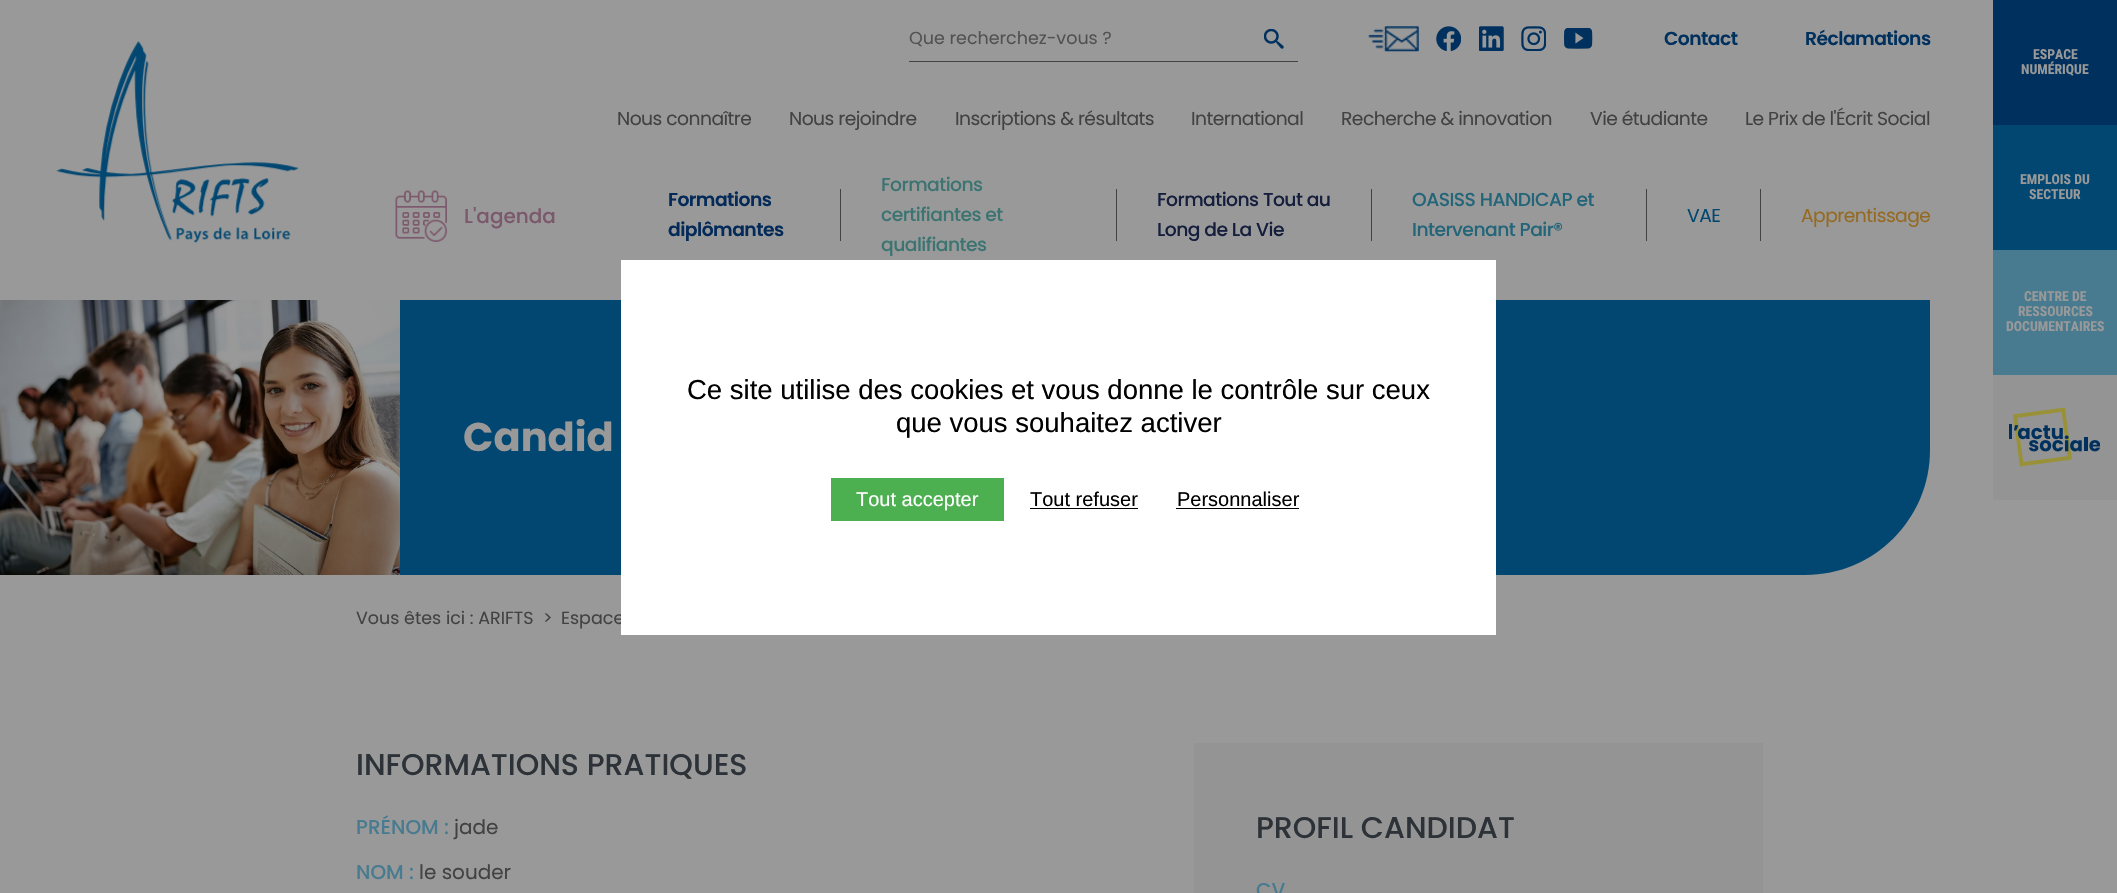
#include "include/core/SkBlurTypes.h"
#include "include/core/SkCanvas.h"
#include "include/core/SkData.h"
#include "include/core/SkFont.h"
#include "include/core/SkFontMgr.h"
#include "include/core/SkImage.h"
#include "include/core/SkMaskFilter.h"
#include "include/core/SkPaint.h"
#include "include/core/SkPathBuilder.h"
#include "include/core/SkTextBlob.h"
#include "include/effects/SkDashPathEffect.h"
#include "include/effects/SkGradientShader.h"
#include "include/utils/SkParsePath.h"

extern sk_sp<SkFontMgr> fontMgr;

void draw(SkCanvas* canvas) {
  SkPaint p;
  p.setAntiAlias(true);
  auto spacedText = [&](const char* s, float x, float y, const SkFont& font, const SkPaint& ink, float letter, float word) {
    std::vector<SkGlyphID> glyphs(font.countText(s, strlen(s), SkTextEncoding::kUTF8));
    std::vector<float> xs(glyphs.size());
    font.textToGlyphs(s, strlen(s), SkTextEncoding::kUTF8, glyphs);
    font.getXPos(glyphs, xs, x);
    float extra = 0;
    for (size_t i = 0; i < glyphs.size(); i++) {
      xs[i] += extra;
      extra += letter + word * (glyphs[i] == font.unicharToGlyph(' '));
    }
    canvas->drawTextBlob(SkTextBlob::MakeFromPosHGlyphs(glyphs, xs, y, font), 0, 0, ink);
  };
  canvas->clear(SkColorSetRGB(153, 153, 153));
  p.setColor(SkColorSetRGB(1, 71, 113));
  canvas->drawPath(SkPathBuilder().moveTo(0, 0).lineTo(1930, 0).lineTo(1930, 450).cubicTo(1930, 519, 1874, 575, 1805, 575).lineTo(0, 575).close().detach(), p);
  p.setColor(SkColorSetRGB(153, 153, 153));
  canvas->drawRect(SkRect::MakeLTRB(0, 0, 1930, 300), p);
  canvas->drawImageRect(SkImages::DeferredFromEncodedData(SkData::MakeFromFileName("images/1.png")), SkRect::MakeLTRB(56, 41, 299, 243), SkSamplingOptions());
  p.setColor(SkColorSetRGB(66, 66, 66));
  canvas->drawRect(SkRect::MakeLTRB(909, 61, 1298, 62), p);
  canvas->drawImageRect(SkImages::DeferredFromEncodedData(SkData::MakeFromFileName("images/2.png")), SkRect::MakeLTRB(1264, 29, 1284, 49), SkSamplingOptions());
  canvas->drawImageRect(SkImages::DeferredFromEncodedData(SkData::MakeFromFileName("images/3.png")), SkRect::MakeLTRB(1368, 26, 1419, 52), SkSamplingOptions());
  canvas->drawImageRect(SkImages::DeferredFromEncodedData(SkData::MakeFromFileName("images/4.png")), SkRect::MakeLTRB(1436, 26, 1461, 51), SkSamplingOptions());
  canvas->drawImageRect(SkImages::DeferredFromEncodedData(SkData::MakeFromFileName("images/5.png")), SkRect::MakeLTRB(1479, 26, 1504, 51), SkSamplingOptions());
  canvas->drawImageRect(SkImages::DeferredFromEncodedData(SkData::MakeFromFileName("images/6.png")), SkRect::MakeLTRB(1521, 26, 1546, 51), SkSamplingOptions());
  canvas->drawImageRect(SkImages::DeferredFromEncodedData(SkData::MakeFromFileName("images/7.png")), SkRect::MakeLTRB(1564, 28, 1593, 49), SkSamplingOptions());
  canvas->drawRect(SkRect::MakeLTRB(840, 189, 841, 241), p);
  canvas->drawRect(SkRect::MakeLTRB(1116, 189, 1117, 241), p);
  canvas->drawRect(SkRect::MakeLTRB(1371, 189, 1372, 241), p);
  canvas->drawRect(SkRect::MakeLTRB(1646, 189, 1647, 241), p);
  canvas->drawRect(SkRect::MakeLTRB(1760, 189, 1761, 241), p);
  canvas->drawImageRect(SkImages::DeferredFromEncodedData(SkData::MakeFromFileName("images/8.png")), SkRect::MakeLTRB(395, 190, 447, 242), SkSamplingOptions());
  p.setColor(SkColorSetRGB(0, 49, 94));
  canvas->drawRect(SkRect::MakeLTRB(1993, 0, 2117, 125), p);
  p.setColor(SkColorSetRGB(1, 71, 113));
  canvas->drawRect(SkRect::MakeLTRB(1993, 125, 2117, 250), p);
  p.setColor(SkColorSetRGB(73, 123, 144));
  canvas->drawRect(SkRect::MakeLTRB(1993, 250, 2117, 375), p);
  p.setColor(SkColorSetRGB(148, 148, 148));
  canvas->drawRect(SkRect::MakeLTRB(1993, 375, 2117, 500), p);
  canvas->drawImageRect(SkImages::DeferredFromEncodedData(SkData::MakeFromFileName("images/9.png")), SkRect::MakeLTRB(2009, 408, 2100, 467), SkSamplingOptions());
  canvas->drawImageRect(SkImages::DeferredFromEncodedData(SkData::MakeFromFileName("images/10.png")), SkRect::MakeLTRB(0, 300, 400, 575), SkSamplingOptions());
  canvas->drawRect(SkRect::MakeLTRB(1194, 743, 1763, 893), p);
  SkFont font1(fontMgr->matchFamilyStyle("Poppins", SkFontStyle::Normal()), 17.5f);
  font1.setSubpixel(true);
  p.setColor(SkColorSetRGB(82, 82, 82));
  canvas->drawString("Que recherchez-vous ?", 909, 44, font1, p);
  SkFont font2(fontMgr->matchFamilyStyle("Poppins", SkFontStyle(600, SkFontStyle::kNormal_Width, SkFontStyle::kUpright_Slant)), 18.75f);
  font2.setSubpixel(true);
  p.setColor(SkColorSetRGB(0, 49, 94));
  spacedText("Contact", 1664, 45, font2, p, -0.55f, 0);
  spacedText("Réclamations", 1805, 45, font2, p, -0.55f, 0);
  p.setColor(SkColorSetRGB(3, 42, 88));
  spacedText("Formations", 668, 206, font2, p, -0.55f, 0);
  spacedText("diplômantes", 668, 236, font2, p, -0.55f, 0);
  SkFont font3(fontMgr->matchFamilyStyle("Poppins", SkFontStyle(500, SkFontStyle::kNormal_Width, SkFontStyle::kUpright_Slant)), 18.75f);
  font3.setSubpixel(true);
  p.setColor(SkColorSetRGB(60, 116, 114));
  spacedText("Formations", 881, 191, font3, p, -0.55f, 0);
  spacedText("certifiantes et", 881, 221, font3, p, -0.55f, 0);
  spacedText("qualifiantes", 881, 251, font3, p, -0.55f, 0);
  p.setColor(SkColorSetRGB(21, 31, 61));
  spacedText("Formations Tout au", 1157, 206, font3, p, -0.55f, 0);
  spacedText("Long de La Vie", 1157, 236, font3, p, -0.55f, 0);
  p.setColor(SkColorSetRGB(35, 101, 121));
  spacedText("OASISS HANDICAP et", 1412, 206, font3, p, -0.55f, 0);
  spacedText("Intervenant Pair®", 1412, 236, font3, p, -0.55f, 0);
  SkFont font4(fontMgr->matchFamilyStyle("Poppins", SkFontStyle::Normal()), 18.75f);
  font4.setSubpixel(true);
  p.setColor(SkColorSetRGB(1, 71, 113));
  spacedText("VAE", 1687, 222, font4, p, -0.55f, 0);
  p.setColor(SkColorSetRGB(149, 106, 32));
  spacedText("Apprentissage", 1801, 222, font4, p, -0.55f, 0);
  p.setColor(SkColorSetRGB(66, 66, 66));
  spacedText("Nous connaître", 617, 125, font4, p, -0.55f, 0);
  spacedText("Nous rejoindre", 789, 125, font4, p, -0.55f, 0);
  spacedText("Inscriptions & résultats", 955, 125, font4, p, -0.55f, 0);
  spacedText("International", 1191, 125, font4, p, -0.55f, 0);
  spacedText("Recherche & innovation", 1341, 125, font4, p, -0.55f, 0);
  spacedText("Vie étudiante", 1590, 125, font4, p, -0.55f, 0);
  spacedText("Le Prix de l'Écrit Social", 1745, 125, font4, p, -0.55f, 0);
  SkFont font5(fontMgr->matchFamilyStyle("Poppins", SkFontStyle(500, SkFontStyle::kNormal_Width, SkFontStyle::kUpright_Slant)), 20);
  font5.setSubpixel(true);
  p.setColor(SkColorSetRGB(124, 88, 108));
  canvas->drawString("L'agenda", 464, 223, font5, p);
  SkFont font6(fontMgr->matchFamilyStyle("Roboto Condensed", SkFontStyle::Bold()), 13.75f);
  font6.setSubpixel(true);
  p.setColor(SkColorSetRGB(153, 153, 153));
  canvas->drawString("ESPACE", 2033, 59, font6, p);
  canvas->drawString("NUMÉRIQUE", 2021, 74, font6, p);
  canvas->drawString("EMPLOIS DU", 2020, 184, font6, p);
  canvas->drawString("SECTEUR", 2029, 199, font6, p);
  canvas->drawString("CENTRE DE", 2024, 301, font6, p);
  canvas->drawString("RESSOURCES", 2018, 316, font6, p);
  canvas->drawString("DOCUMENTAIRES", 2006, 331, font6, p);
  SkFont font7(fontMgr->matchFamilyStyle("Poppins", SkFontStyle::Bold()), 40);
  font7.setSubpixel(true);
  canvas->drawString("Candid", 463, 451, font7, p);
  p.setColor(SkColorSetRGB(66, 66, 66));
  canvas->drawString("Vous êtes ici : ARIFTS", 356, 624, font1, p);
  canvas->drawString(">", 543, 624, font1, p);
  canvas->drawString("Espace", 561, 624, font1, p);
  SkFont font8(fontMgr->matchFamilyStyle("Poppins", SkFontStyle(500, SkFontStyle::kNormal_Width, SkFontStyle::kUpright_Slant)), 30);
  font8.setSubpixel(true);
  p.setColor(SkColorSetRGB(44, 50, 55));
  canvas->drawString("INFORMATIONS PRATIQUES", 356, 775, font8, p);
  p.setColor(SkColorSetRGB(73, 123, 144));
  canvas->drawString("PRÉNOM :", 356, 834, font5, p);
  SkFont font9(fontMgr->matchFamilyStyle("Poppins", SkFontStyle::Normal()), 20);
  font9.setSubpixel(true);
  p.setColor(SkColorSetRGB(66, 66, 66));
  canvas->drawString("jade", 454, 834, font9, p);
  p.setColor(SkColorSetRGB(73, 123, 144));
  canvas->drawString("NOM :", 356, 879, font5, p);
  p.setColor(SkColorSetRGB(66, 66, 66));
  canvas->drawString("le souder", 419, 879, font9, p);
  p.setColor(SkColorSetRGB(44, 50, 55));
  canvas->drawString("PROFIL CANDIDAT", 1256, 838, font8, p);
  p.setColor(SkColorSetRGB(73, 123, 144));
  canvas->drawString("CV", 1256, 897, font5, p);
  p.setColor(SK_ColorWHITE);
  canvas->drawRect(SkRect::MakeLTRB(621, 260, 1496, 635), p);
  SkFont font10(fontMgr->matchFamilyStyle("Liberation Sans", SkFontStyle::Normal()), 27.5f);
  font10.setSubpixel(true);
  p.setColor(SK_ColorBLACK);
  canvas->drawString("Ce site utilise des cookies et vous donne le contrôle sur ceux", 687, 399, font10, p);
  canvas->drawString("que vous souhaitez activer", 896, 432, font10, p);
  p.setColor(SkColorSetRGB(76, 175, 80));
  canvas->drawRect(SkRect::MakeLTRB(831, 478, 1004, 521), p);
  SkFont font11(fontMgr->matchFamilyStyle("Liberation Sans", SkFontStyle::Normal()), 20);
  font11.setSubpixel(true);
  p.setColor(SK_ColorWHITE);
  canvas->drawString("Tout accepter", 856, 506, font11, p);
  p.setColor(SK_ColorBLACK);
  canvas->drawString("Tout refuser", 1030, 506, font11, p);
  canvas->drawRect(SkRect::MakeLTRB(1030, 508, 1138, 509), p);
  canvas->drawString("Personnaliser", 1177, 506, font11, p);
  canvas->drawRect(SkRect::MakeLTRB(1176, 508, 1299, 509), p);
}
